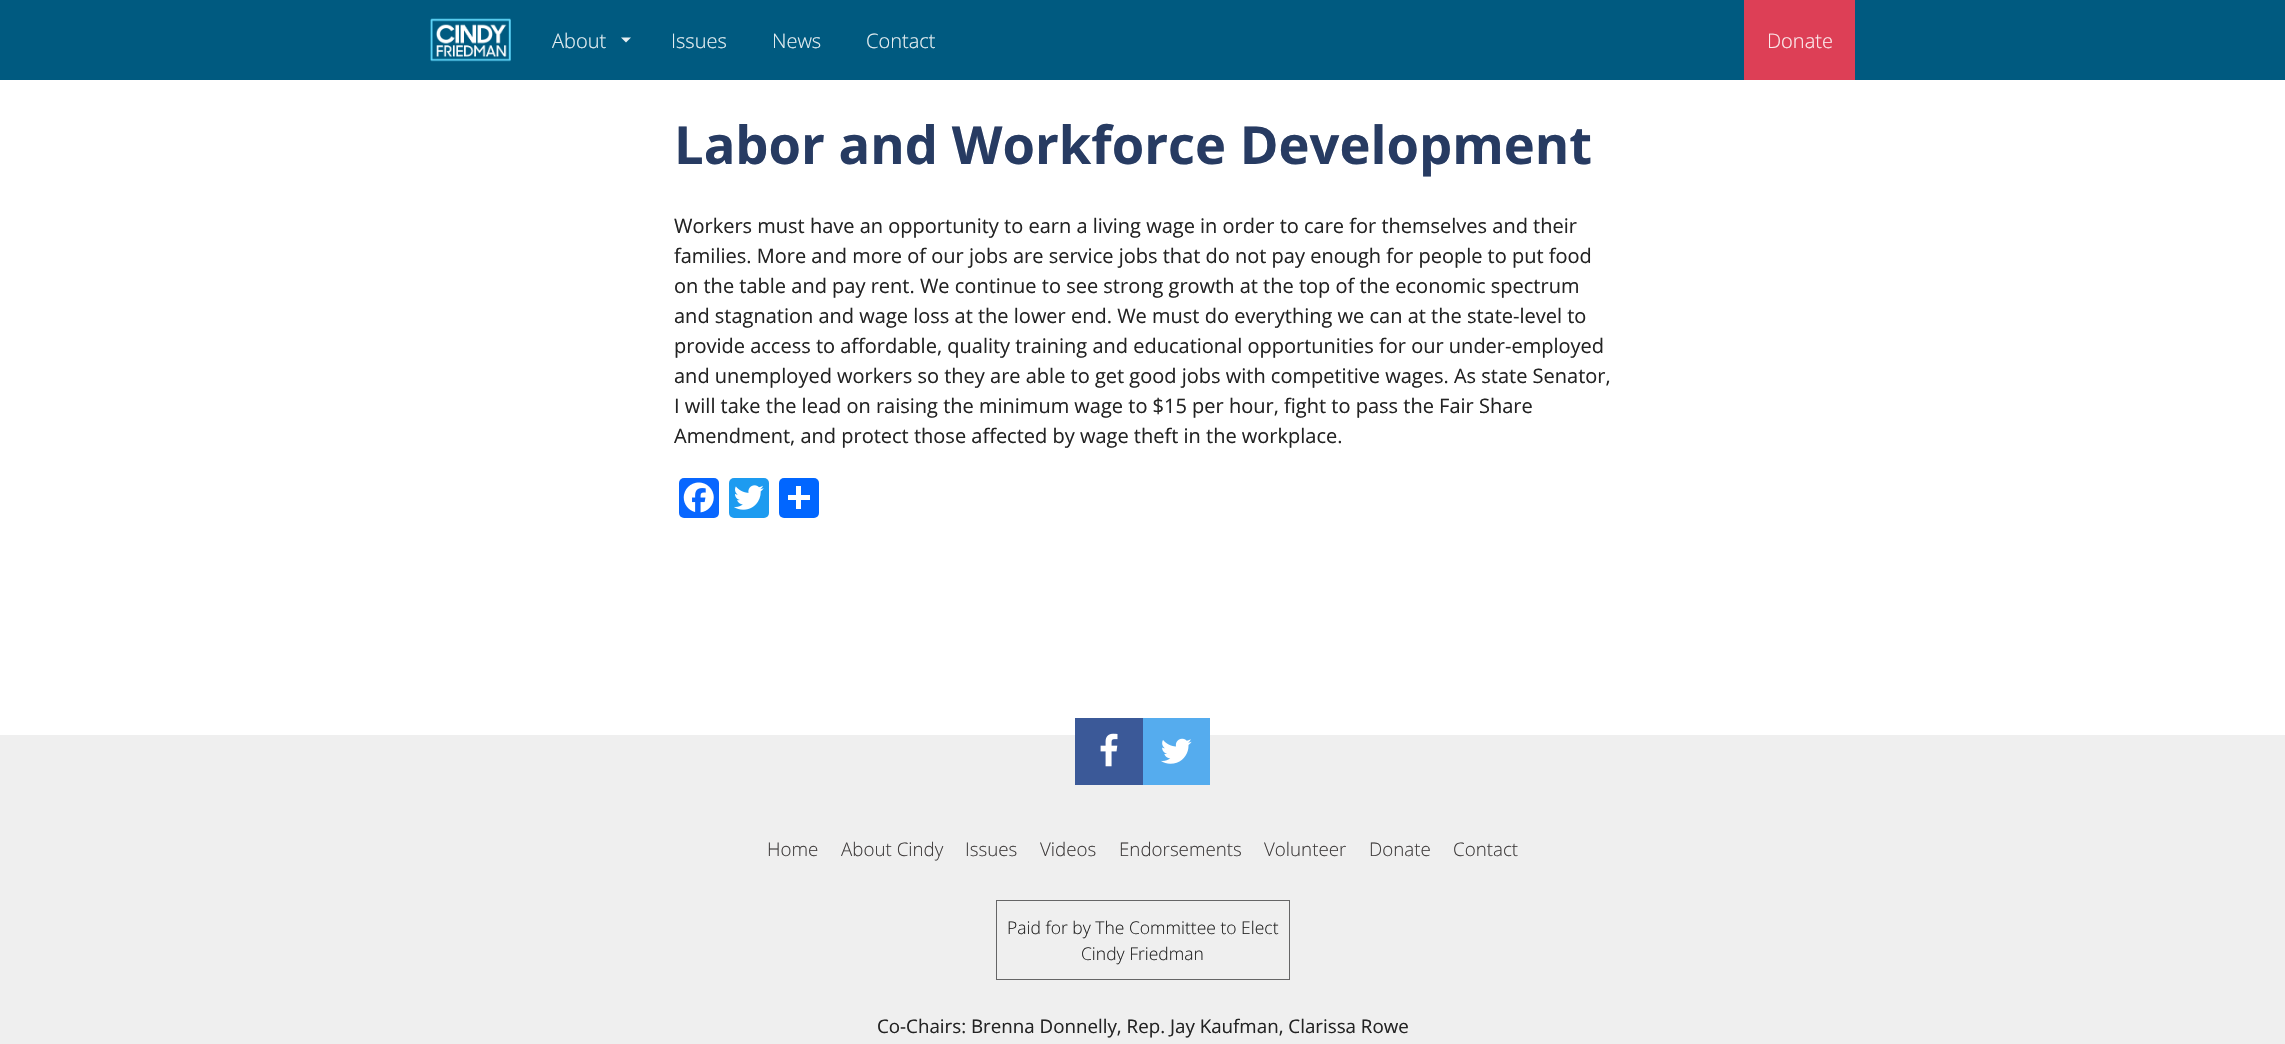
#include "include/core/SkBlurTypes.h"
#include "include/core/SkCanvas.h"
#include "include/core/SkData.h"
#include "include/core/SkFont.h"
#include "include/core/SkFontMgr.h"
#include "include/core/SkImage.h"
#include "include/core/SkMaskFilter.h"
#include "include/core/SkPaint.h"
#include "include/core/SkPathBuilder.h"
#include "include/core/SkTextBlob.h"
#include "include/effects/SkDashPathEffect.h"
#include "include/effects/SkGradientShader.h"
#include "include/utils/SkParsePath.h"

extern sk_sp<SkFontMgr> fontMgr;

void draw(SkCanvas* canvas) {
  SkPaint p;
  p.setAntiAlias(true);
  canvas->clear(SK_ColorWHITE);
  p.setColor(SkColorSetRGB(0, 90, 128));
  canvas->drawRect(SkRect::MakeLTRB(0, 0, 2285, 80), p);
  canvas->drawImageRect(SkImages::DeferredFromEncodedData(SkData::MakeFromFileName("images/1.png")), SkRect::MakeLTRB(430, 18, 511, 62), SkSamplingOptions());
  p.setColor(SkColorSetRGB(230, 239, 242));
  canvas->drawPath(SkPathBuilder().moveTo(621, 37.5f).lineTo(631, 37.5f).lineTo(626, 42.5f).close().detach(), p);
  p.setColor(SkColorSetRGB(221, 63, 86));
  canvas->drawRect(SkRect::MakeLTRB(1744, 0, 1855, 80), p);
  p.setColor(SkColorSetRGB(8, 102, 255));
  canvas->drawRoundRect(SkRect::MakeLTRB(679, 478, 719, 518), 5, 5, p);
  canvas->drawImageRect(SkImages::DeferredFromEncodedData(SkData::MakeFromFileName("images/2.png")), SkRect::MakeLTRB(683, 482, 714, 513), SkSamplingOptions());
  p.setColor(SkColorSetRGB(29, 155, 240));
  canvas->drawRoundRect(SkRect::MakeLTRB(729, 478, 769, 518), 5, 5, p);
  canvas->drawImageRect(SkImages::DeferredFromEncodedData(SkData::MakeFromFileName("images/3.png")), SkRect::MakeLTRB(734, 485, 764, 510), SkSamplingOptions());
  p.setColor(SkColorSetRGB(1, 102, 255));
  canvas->drawRoundRect(SkRect::MakeLTRB(779, 478, 819, 518), 5, 5, p);
  p.setColor(SK_ColorWHITE);
  canvas->drawRect(SkRect::MakeLTRB(796, 486, 801, 509), p);
  canvas->drawRect(SkRect::MakeLTRB(788, 495, 810, 500), p);
  p.setColor(SkColorSetRGB(239, 239, 239));
  canvas->drawRect(SkRect::MakeLTRB(0, 735, 2285, 1044), p);
  p.setColor(SkColorSetRGB(59, 89, 152));
  canvas->drawRect(SkRect::MakeLTRB(1075, 718, 1143, 785), p);
  canvas->drawImageRect(SkImages::DeferredFromEncodedData(SkData::MakeFromFileName("images/4.png")), SkRect::MakeLTRB(1100, 733, 1118, 767), SkSamplingOptions());
  p.setColor(SkColorSetRGB(85, 172, 238));
  canvas->drawRect(SkRect::MakeLTRB(1143, 718, 1210, 785), p);
  canvas->drawImageRect(SkImages::DeferredFromEncodedData(SkData::MakeFromFileName("images/5.png")), SkRect::MakeLTRB(1161, 738, 1192, 764), SkSamplingOptions());
  p.setStyle(SkPaint::kStroke_Style);
  p.setStrokeWidth(1);
  p.setColor(SkColorSetRGB(101, 101, 102));
  canvas->drawRect(SkRect::MakeLTRB(996.5f, 900.5f, 1289.5f, 979.5f), p);
  SkFont font1(fontMgr->matchFamilyStyle("Open Sans", SkFontStyle(300, SkFontStyle::kNormal_Width, SkFontStyle::kUpright_Slant)), 20);
  font1.setSubpixel(true);
  p.setStyle(SkPaint::kFill_Style);
  p.setColor(SkColorSetRGB(230, 239, 242));
  canvas->drawString("About", 552, 48, font1, p);
  canvas->drawString("Issues", 671, 48, font1, p);
  canvas->drawString("News", 772, 48, font1, p);
  canvas->drawString("Contact", 866, 48, font1, p);
  p.setColor(SkColorSetRGB(252, 236, 238));
  canvas->drawString("Donate", 1767, 48, font1, p);
  SkFont font2(fontMgr->matchFamilyStyle("Open Sans", SkFontStyle::Bold()), 52.5f);
  font2.setSubpixel(true);
  p.setColor(SkColorSetRGB(39, 59, 98));
  canvas->drawString("Labor and Workforce Development", 674, 164, font2, p);
  SkFont font3(fontMgr->matchFamilyStyle("Open Sans", SkFontStyle::Normal()), 20);
  font3.setSubpixel(true);
  p.setColor(SkColorSetRGB(35, 35, 35));
  canvas->drawString("Workers must have an opportunity to earn a living wage in order to care for themselves and their", 674, 233, font3, p);
  canvas->drawString("families. More and more of our jobs are service jobs that do not pay enough for people to put food", 674, 263, font3, p);
  canvas->drawString("on the table and pay rent. We continue to see strong growth at the top of the economic spectrum", 674, 293, font3, p);
  canvas->drawString("and stagnation and wage loss at the lower end. We must do everything we can at the state-level to", 674, 323, font3, p);
  canvas->drawString("provide access to affordable, quality training and educational opportunities for our under-employed", 674, 353, font3, p);
  canvas->drawString("and unemployed workers so they are able to get good jobs with competitive wages. As state Senator,", 674, 383, font3, p);
  canvas->drawString("I will take the lead on raising the minimum wage to $15 per hour, fight to pass the Fair Share", 674, 413, font3, p);
  canvas->drawString("Amendment, and protect those affected by wage theft in the workplace.", 674, 443, font3, p);
  SkFont font4(fontMgr->matchFamilyStyle("Open Sans", SkFontStyle(300, SkFontStyle::kNormal_Width, SkFontStyle::kUpright_Slant)), 18.75f);
  font4.setSubpixel(true);
  p.setColor(SkColorSetRGB(64, 61, 61));
  canvas->drawString("Home", 767, 856, font4, p);
  canvas->drawString("About Cindy", 841, 856, font4, p);
  canvas->drawString("Issues", 965, 856, font4, p);
  canvas->drawString("Videos", 1040, 856, font4, p);
  canvas->drawString("Endorsements", 1119, 856, font4, p);
  canvas->drawString("Volunteer", 1264, 856, font4, p);
  canvas->drawString("Donate", 1369, 856, font4, p);
  canvas->drawString("Contact", 1453, 856, font4, p);
  SkFont font5(fontMgr->matchFamilyStyle("Open Sans", SkFontStyle(300, SkFontStyle::kNormal_Width, SkFontStyle::kUpright_Slant)), 17.5f);
  font5.setSubpixel(true);
  p.setColor(SkColorSetRGB(35, 35, 35));
  canvas->drawString("Paid for by The Committee to Elect", 1007, 934, font5, p);
  canvas->drawString("Cindy Friedman", 1081, 960, font5, p);
  SkFont font6(fontMgr->matchFamilyStyle("Open Sans", SkFontStyle::Normal()), 18.75f);
  font6.setSubpixel(true);
  canvas->drawString("Co-Chairs: Brenna Donnelly, Rep. Jay Kaufman, Clarissa Rowe", 877, 1033, font6, p);
}
